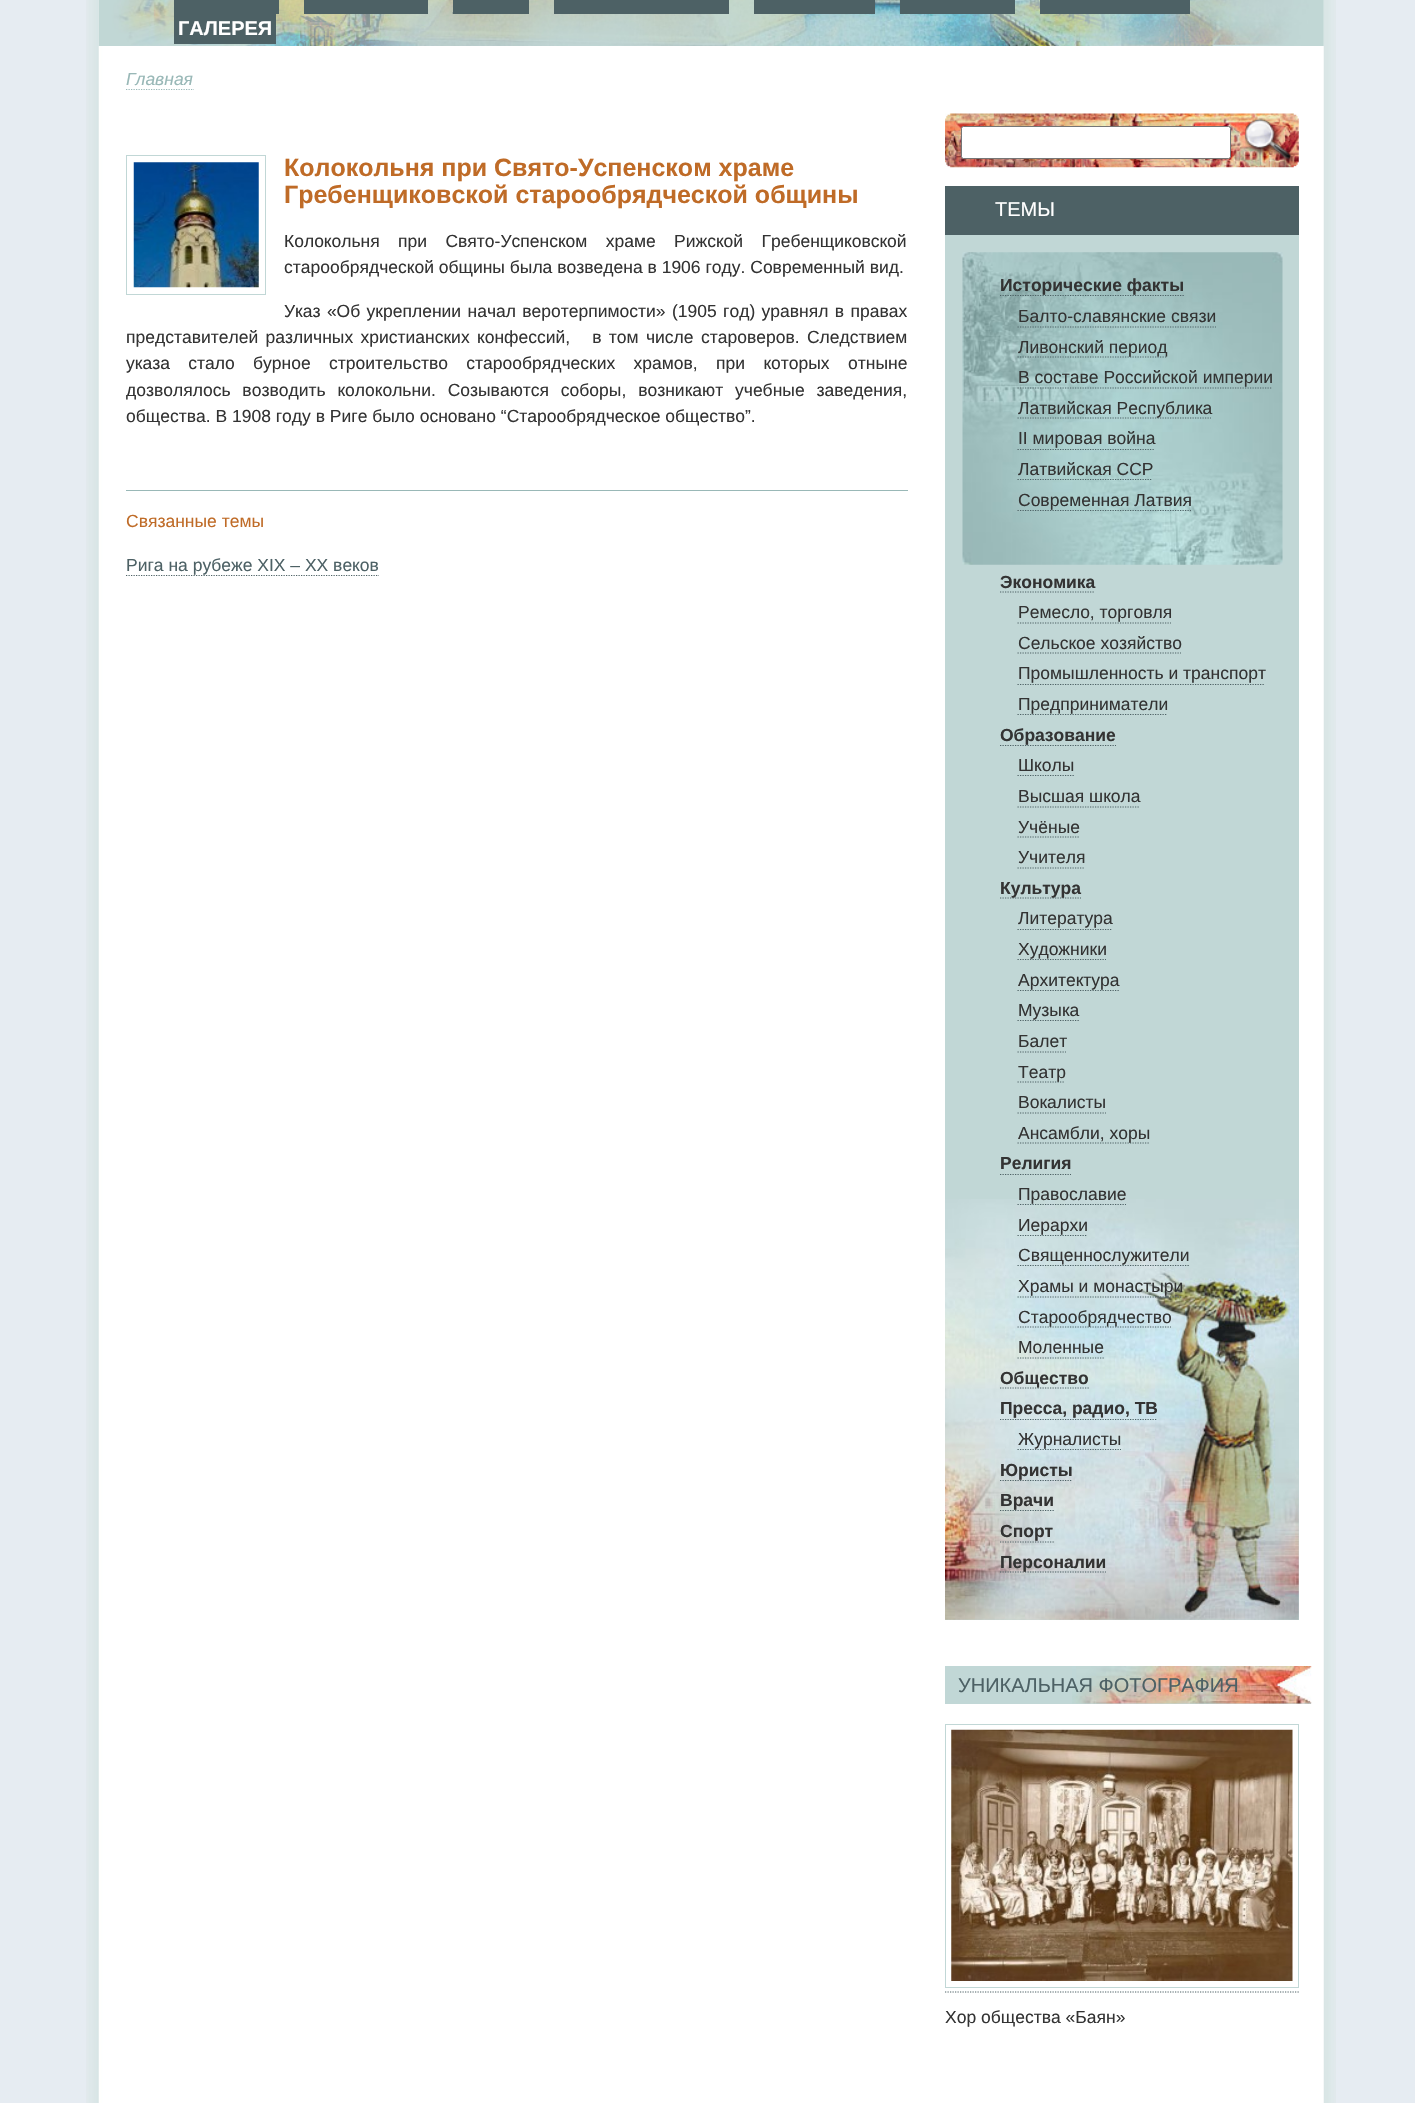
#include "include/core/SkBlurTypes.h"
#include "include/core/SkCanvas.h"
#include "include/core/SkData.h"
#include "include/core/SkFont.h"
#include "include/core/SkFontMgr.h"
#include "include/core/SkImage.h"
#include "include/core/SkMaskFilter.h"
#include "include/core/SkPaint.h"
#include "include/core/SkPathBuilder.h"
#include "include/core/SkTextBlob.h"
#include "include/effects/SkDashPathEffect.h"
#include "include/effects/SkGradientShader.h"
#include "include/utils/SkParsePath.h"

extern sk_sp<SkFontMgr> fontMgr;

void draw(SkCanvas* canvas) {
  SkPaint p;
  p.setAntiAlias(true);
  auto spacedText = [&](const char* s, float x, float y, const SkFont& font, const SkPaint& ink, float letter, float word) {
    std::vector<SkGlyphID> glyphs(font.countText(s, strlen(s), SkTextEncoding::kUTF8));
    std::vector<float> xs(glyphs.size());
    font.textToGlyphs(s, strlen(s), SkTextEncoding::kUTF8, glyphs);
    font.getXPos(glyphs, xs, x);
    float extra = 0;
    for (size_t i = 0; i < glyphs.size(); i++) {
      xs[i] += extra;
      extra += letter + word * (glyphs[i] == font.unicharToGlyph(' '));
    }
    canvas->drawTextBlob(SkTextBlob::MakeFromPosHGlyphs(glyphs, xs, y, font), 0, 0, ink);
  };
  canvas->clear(SkColorSetRGB(230, 236, 242));
  canvas->drawImageRect(SkImages::DeferredFromEncodedData(SkData::MakeFromFileName("images/1.png")), SkRect::MakeLTRB(86, 0, 1336, 2103), SkSamplingOptions());
  canvas->drawImageRect(SkImages::DeferredFromEncodedData(SkData::MakeFromFileName("images/2.png")), SkRect::MakeLTRB(98, 0, 1324, 46), SkSamplingOptions());
  p.setColor(SkColorSetRGB(77, 97, 101));
  canvas->drawRect(SkRect::MakeLTRB(174, 0, 279, 14), p);
  canvas->drawRect(SkRect::MakeLTRB(304, 0, 428, 14), p);
  canvas->drawRect(SkRect::MakeLTRB(453, 0, 529, 14), p);
  p.setStyle(SkPaint::kStroke_Style);
  p.setStrokeWidth(1.2f);
  p.setPathEffect(SkDashPathEffect::Make({{1.25f, 1.25f}}, 0));
  canvas->drawPath(SkPathBuilder().moveTo(452.5f, 13).lineTo(529, 13).detach(), p);
  p.setPathEffect(nullptr);
  p.setStyle(SkPaint::kFill_Style);
  canvas->drawRect(SkRect::MakeLTRB(554, 0, 729, 14), p);
  canvas->drawRect(SkRect::MakeLTRB(754, 0, 875, 14), p);
  canvas->drawRect(SkRect::MakeLTRB(900, 0, 1015, 14), p);
  canvas->drawRect(SkRect::MakeLTRB(1040, 0, 1190, 14), p);
  canvas->drawRect(SkRect::MakeLTRB(174, 14, 276, 44), p);
  p.setStyle(SkPaint::kStroke_Style);
  p.setColor(SkColorSetRGB(153, 184, 183));
  p.setPathEffect(SkDashPathEffect::Make({{1.25f, 1.25f}}, 0));
  canvas->drawPath(SkPathBuilder().moveTo(126, 89.5f).lineTo(194, 89.5f).detach(), p);
  p.setPathEffect(nullptr);
  p.setStrokeWidth(1);
  p.setColor(SkColorSetRGB(193, 215, 214));
  canvas->drawRect(SkRect::MakeLTRB(126.5f, 155.5f, 265.5f, 294.5f), p);
  canvas->drawImageRect(SkImages::DeferredFromEncodedData(SkData::MakeFromFileName("images/3.png")), SkRect::MakeLTRB(133, 162, 259, 288), SkSamplingOptions());
  p.setStyle(SkPaint::kFill_Style);
  p.setColor(SkColorSetRGB(153, 184, 183));
  canvas->drawRect(SkRect::MakeLTRB(126, 490, 908, 491), p);
  p.setStyle(SkPaint::kStroke_Style);
  p.setStrokeWidth(1.2f);
  p.setColor(SkColorSetRGB(77, 97, 101));
  p.setPathEffect(SkDashPathEffect::Make({{1.25f, 1.25f}}, 0));
  canvas->drawPath(SkPathBuilder().moveTo(126, 575.5f).lineTo(379, 575.5f).detach(), p);
  p.setPathEffect(nullptr);
  canvas->drawImageRect(SkImages::DeferredFromEncodedData(SkData::MakeFromFileName("images/4.png")), SkRect::MakeLTRB(945, 113, 1299, 168), SkSamplingOptions());
  p.setStyle(SkPaint::kFill_Style);
  p.setColor(SK_ColorWHITE);
  canvas->drawRoundRect(SkRect::MakeLTRB(961.5f, 126.5f, 1230.5f, 158.5f), 2, 2, p);
  p.setStyle(SkPaint::kStroke_Style);
  p.setStrokeWidth(1);
  p.setColor(SkColorSetRGB(118, 118, 118));
  canvas->drawRoundRect(SkRect::MakeLTRB(961.5f, 126.5f, 1230.5f, 158.5f), 2, 2, p);
  canvas->drawImageRect(SkImages::DeferredFromEncodedData(SkData::MakeFromFileName("images/5.png")), SkRect::MakeLTRB(1245, 118, 1296, 166), SkSamplingOptions());
  p.setStyle(SkPaint::kFill_Style);
  p.setColor(SkColorSetRGB(77, 97, 101));
  canvas->drawRect(SkRect::MakeLTRB(945, 186, 1299, 235), p);
  p.setColor(SkColorSetRGB(193, 215, 214));
  canvas->drawRect(SkRect::MakeLTRB(945, 235, 1299, 1620), p);
  canvas->drawImageRect(SkImages::DeferredFromEncodedData(SkData::MakeFromFileName("images/6.png")), SkRect::MakeLTRB(945, 1199, 1299, 1620), SkSamplingOptions());
  canvas->drawImageRect(SkImages::DeferredFromEncodedData(SkData::MakeFromFileName("images/7.png")), SkRect::MakeLTRB(962, 252, 1283, 565), SkSamplingOptions());
  p.setStyle(SkPaint::kStroke_Style);
  p.setStrokeWidth(1.2f);
  p.setColor(SkColorSetRGB(77, 97, 101));
  p.setPathEffect(SkDashPathEffect::Make({{1.25f, 1.25f}}, 0));
  canvas->drawPath(SkPathBuilder().moveTo(1000, 295.5f).lineTo(1184, 295.5f).detach(), p);
  p.setPathEffect(nullptr);
  p.setPathEffect(SkDashPathEffect::Make({{1.25f, 1.25f}}, 0));
  canvas->drawPath(SkPathBuilder().moveTo(1017.5f, 327).lineTo(1216, 327).detach(), p);
  p.setPathEffect(nullptr);
  p.setPathEffect(SkDashPathEffect::Make({{1.25f, 1.25f}}, 0));
  canvas->drawPath(SkPathBuilder().moveTo(1017.5f, 357).lineTo(1167.5f, 357).detach(), p);
  p.setPathEffect(nullptr);
  p.setPathEffect(SkDashPathEffect::Make({{1.25f, 1.25f}}, 0));
  canvas->drawPath(SkPathBuilder().moveTo(1017.5f, 388).lineTo(1272.5f, 388).detach(), p);
  p.setPathEffect(nullptr);
  p.setPathEffect(SkDashPathEffect::Make({{1.25f, 1.25f}}, 0));
  canvas->drawPath(SkPathBuilder().moveTo(1017.5f, 418).lineTo(1211, 418).detach(), p);
  p.setPathEffect(nullptr);
  p.setPathEffect(SkDashPathEffect::Make({{1.25f, 1.25f}}, 0));
  canvas->drawPath(SkPathBuilder().moveTo(1017.5f, 449.5f).lineTo(1155, 449.5f).detach(), p);
  p.setPathEffect(nullptr);
  p.setPathEffect(SkDashPathEffect::Make({{1.25f, 1.25f}}, 0));
  canvas->drawPath(SkPathBuilder().moveTo(1017.5f, 479.5f).lineTo(1152.5f, 479.5f).detach(), p);
  p.setPathEffect(nullptr);
  p.setPathEffect(SkDashPathEffect::Make({{1.25f, 1.25f}}, 0));
  canvas->drawPath(SkPathBuilder().moveTo(1017.5f, 510.5f).lineTo(1191, 510.5f).detach(), p);
  p.setPathEffect(nullptr);
  p.setPathEffect(SkDashPathEffect::Make({{1.25f, 1.25f}}, 0));
  canvas->drawPath(SkPathBuilder().moveTo(1000, 592).lineTo(1095, 592).detach(), p);
  p.setPathEffect(nullptr);
  p.setPathEffect(SkDashPathEffect::Make({{1.25f, 1.25f}}, 0));
  canvas->drawPath(SkPathBuilder().moveTo(1017.5f, 623).lineTo(1171, 623).detach(), p);
  p.setPathEffect(nullptr);
  p.setPathEffect(SkDashPathEffect::Make({{1.25f, 1.25f}}, 0));
  canvas->drawPath(SkPathBuilder().moveTo(1017.5f, 653).lineTo(1181, 653).detach(), p);
  p.setPathEffect(nullptr);
  p.setPathEffect(SkDashPathEffect::Make({{1.25f, 1.25f}}, 0));
  canvas->drawPath(SkPathBuilder().moveTo(1017.5f, 684.5f).lineTo(1265, 684.5f).detach(), p);
  p.setPathEffect(nullptr);
  p.setPathEffect(SkDashPathEffect::Make({{1.25f, 1.25f}}, 0));
  canvas->drawPath(SkPathBuilder().moveTo(1017.5f, 714.5f).lineTo(1167.5f, 714.5f).detach(), p);
  p.setPathEffect(nullptr);
  p.setPathEffect(SkDashPathEffect::Make({{1.25f, 1.25f}}, 0));
  canvas->drawPath(SkPathBuilder().moveTo(1000, 745.5f).lineTo(1116, 745.5f).detach(), p);
  p.setPathEffect(nullptr);
  p.setPathEffect(SkDashPathEffect::Make({{1.25f, 1.25f}}, 0));
  canvas->drawPath(SkPathBuilder().moveTo(1017.5f, 775.5f).lineTo(1074, 775.5f).detach(), p);
  p.setPathEffect(nullptr);
  p.setPathEffect(SkDashPathEffect::Make({{1.25f, 1.25f}}, 0));
  canvas->drawPath(SkPathBuilder().moveTo(1017.5f, 807).lineTo(1140, 807).detach(), p);
  p.setPathEffect(nullptr);
  p.setPathEffect(SkDashPathEffect::Make({{1.25f, 1.25f}}, 0));
  canvas->drawPath(SkPathBuilder().moveTo(1017.5f, 837).lineTo(1080, 837).detach(), p);
  p.setPathEffect(nullptr);
  p.setPathEffect(SkDashPathEffect::Make({{1.25f, 1.25f}}, 0));
  canvas->drawPath(SkPathBuilder().moveTo(1017.5f, 868).lineTo(1085, 868).detach(), p);
  p.setPathEffect(nullptr);
  p.setPathEffect(SkDashPathEffect::Make({{1.25f, 1.25f}}, 0));
  canvas->drawPath(SkPathBuilder().moveTo(1000, 898).lineTo(1081, 898).detach(), p);
  p.setPathEffect(nullptr);
  p.setPathEffect(SkDashPathEffect::Make({{1.25f, 1.25f}}, 0));
  canvas->drawPath(SkPathBuilder().moveTo(1017.5f, 929.5f).lineTo(1112.5f, 929.5f).detach(), p);
  p.setPathEffect(nullptr);
  p.setPathEffect(SkDashPathEffect::Make({{1.25f, 1.25f}}, 0));
  canvas->drawPath(SkPathBuilder().moveTo(1017.5f, 959.5f).lineTo(1106, 959.5f).detach(), p);
  p.setPathEffect(nullptr);
  p.setPathEffect(SkDashPathEffect::Make({{1.25f, 1.25f}}, 0));
  canvas->drawPath(SkPathBuilder().moveTo(1017.5f, 990.5f).lineTo(1119, 990.5f).detach(), p);
  p.setPathEffect(nullptr);
  p.setPathEffect(SkDashPathEffect::Make({{1.25f, 1.25f}}, 0));
  canvas->drawPath(SkPathBuilder().moveTo(1017.5f, 1020.5f).lineTo(1079, 1020.5f).detach(), p);
  p.setPathEffect(nullptr);
  p.setPathEffect(SkDashPathEffect::Make({{1.25f, 1.25f}}, 0));
  canvas->drawPath(SkPathBuilder().moveTo(1017.5f, 1052).lineTo(1066, 1052).detach(), p);
  p.setPathEffect(nullptr);
  p.setPathEffect(SkDashPathEffect::Make({{1.25f, 1.25f}}, 0));
  canvas->drawPath(SkPathBuilder().moveTo(1017.5f, 1082).lineTo(1065, 1082).detach(), p);
  p.setPathEffect(nullptr);
  p.setPathEffect(SkDashPathEffect::Make({{1.25f, 1.25f}}, 0));
  canvas->drawPath(SkPathBuilder().moveTo(1017.5f, 1113).lineTo(1106, 1113).detach(), p);
  p.setPathEffect(nullptr);
  p.setPathEffect(SkDashPathEffect::Make({{1.25f, 1.25f}}, 0));
  canvas->drawPath(SkPathBuilder().moveTo(1017.5f, 1143).lineTo(1150, 1143).detach(), p);
  p.setPathEffect(nullptr);
  p.setPathEffect(SkDashPathEffect::Make({{1.25f, 1.25f}}, 0));
  canvas->drawPath(SkPathBuilder().moveTo(1000, 1174.5f).lineTo(1071, 1174.5f).detach(), p);
  p.setPathEffect(nullptr);
  p.setPathEffect(SkDashPathEffect::Make({{1.25f, 1.25f}}, 0));
  canvas->drawPath(SkPathBuilder().moveTo(1017.5f, 1204.5f).lineTo(1126, 1204.5f).detach(), p);
  p.setPathEffect(nullptr);
  p.setPathEffect(SkDashPathEffect::Make({{1.25f, 1.25f}}, 0));
  canvas->drawPath(SkPathBuilder().moveTo(1017.5f, 1235.5f).lineTo(1087.5f, 1235.5f).detach(), p);
  p.setPathEffect(nullptr);
  p.setPathEffect(SkDashPathEffect::Make({{1.25f, 1.25f}}, 0));
  canvas->drawPath(SkPathBuilder().moveTo(1017.5f, 1265.5f).lineTo(1189, 1265.5f).detach(), p);
  p.setPathEffect(nullptr);
  p.setPathEffect(SkDashPathEffect::Make({{1.25f, 1.25f}}, 0));
  canvas->drawPath(SkPathBuilder().moveTo(1017.5f, 1297).lineTo(1182.5f, 1297).detach(), p);
  p.setPathEffect(nullptr);
  p.setPathEffect(SkDashPathEffect::Make({{1.25f, 1.25f}}, 0));
  canvas->drawPath(SkPathBuilder().moveTo(1017.5f, 1327).lineTo(1171, 1327).detach(), p);
  p.setPathEffect(nullptr);
  p.setPathEffect(SkDashPathEffect::Make({{1.25f, 1.25f}}, 0));
  canvas->drawPath(SkPathBuilder().moveTo(1017.5f, 1358).lineTo(1104, 1358).detach(), p);
  p.setPathEffect(nullptr);
  p.setPathEffect(SkDashPathEffect::Make({{1.25f, 1.25f}}, 0));
  canvas->drawPath(SkPathBuilder().moveTo(1000, 1388).lineTo(1089, 1388).detach(), p);
  p.setPathEffect(nullptr);
  p.setPathEffect(SkDashPathEffect::Make({{1.25f, 1.25f}}, 0));
  canvas->drawPath(SkPathBuilder().moveTo(1000, 1419.5f).lineTo(1157.5f, 1419.5f).detach(), p);
  p.setPathEffect(nullptr);
  p.setPathEffect(SkDashPathEffect::Make({{1.25f, 1.25f}}, 0));
  canvas->drawPath(SkPathBuilder().moveTo(1017.5f, 1449.5f).lineTo(1121, 1449.5f).detach(), p);
  p.setPathEffect(nullptr);
  p.setPathEffect(SkDashPathEffect::Make({{1.25f, 1.25f}}, 0));
  canvas->drawPath(SkPathBuilder().moveTo(1000, 1480.5f).lineTo(1072.5f, 1480.5f).detach(), p);
  p.setPathEffect(nullptr);
  p.setPathEffect(SkDashPathEffect::Make({{1.25f, 1.25f}}, 0));
  canvas->drawPath(SkPathBuilder().moveTo(1000, 1510.5f).lineTo(1054, 1510.5f).detach(), p);
  p.setPathEffect(nullptr);
  p.setPathEffect(SkDashPathEffect::Make({{1.25f, 1.25f}}, 0));
  canvas->drawPath(SkPathBuilder().moveTo(1000, 1542).lineTo(1054, 1542).detach(), p);
  p.setPathEffect(nullptr);
  p.setPathEffect(SkDashPathEffect::Make({{1.25f, 1.25f}}, 0));
  canvas->drawPath(SkPathBuilder().moveTo(1000, 1572).lineTo(1106, 1572).detach(), p);
  p.setPathEffect(nullptr);
  p.setStyle(SkPaint::kFill_Style);
  p.setColor(SkColorSetRGB(193, 215, 214));
  canvas->drawRect(SkRect::MakeLTRB(945, 1666, 1311, 1704), p);
  canvas->drawImageRect(SkImages::DeferredFromEncodedData(SkData::MakeFromFileName("images/8.png")), SkRect::MakeLTRB(1072, 1666, 1312, 1704), SkSamplingOptions());
  p.setStyle(SkPaint::kStroke_Style);
  p.setStrokeWidth(1);
  canvas->drawRect(SkRect::MakeLTRB(945.5f, 1724.5f, 1298.5f, 1987.5f), p);
  canvas->drawImageRect(SkImages::DeferredFromEncodedData(SkData::MakeFromFileName("images/9.png")), SkRect::MakeLTRB(951, 1729, 1293, 1981), SkSamplingOptions());
  p.setStrokeWidth(1.2f);
  p.setColor(SkColorSetRGB(77, 97, 101));
  p.setPathEffect(SkDashPathEffect::Make({{1.25f, 1.25f}}, 0));
  canvas->drawPath(SkPathBuilder().moveTo(945, 1992).lineTo(1299, 1992).detach(), p);
  p.setPathEffect(nullptr);
  SkFont font1(fontMgr->matchFamilyStyle("Liberation Sans", SkFontStyle::Bold()), 20);
  font1.setSubpixel(true);
  p.setStyle(SkPaint::kFill_Style);
  p.setColor(SK_ColorWHITE);
  canvas->drawString("ГАЛЕРЕЯ", 178, 35, font1, p);
  SkFont font2(fontMgr->matchFamilyStyle("Liberation Sans", SkFontStyle::Italic()), 17.5f);
  font2.setSubpixel(true);
  p.setColor(SkColorSetRGB(153, 184, 183));
  canvas->drawString("Главная", 126, 85, font2, p);
  SkFont font3(fontMgr->matchFamilyStyle("Liberation Sans", SkFontStyle::Bold()), 25);
  font3.setSubpixel(true);
  p.setColor(SkColorSetRGB(191, 107, 39));
  canvas->drawString("Колокольня при Свято-Успенском храме", 284, 176, font3, p);
  canvas->drawString("Гребенщиковской старообрядческой общины", 284, 203, font3, p);
  SkFont font4(fontMgr->matchFamilyStyle("Liberation Sans", SkFontStyle::Normal()), 17.5f);
  font4.setSubpixel(true);
  p.setColor(SkColorSetRGB(51, 51, 51));
  spacedText("Колокольня при Свято-Успенском храме Рижской Гребенщиковской", 284, 247, font4, p, 0, 13.5f);
  canvas->drawString("старообрядческой общины была возведена в 1906 году. Современный вид.", 284, 273, font4, p);
  spacedText("Указ «Об укреплении начал веротерпимости» (1905 год) уравнял в правах", 284, 317, font4, p, 0, 1.5f);
  spacedText("представителей различных христианских конфессий,   в том числе староверов. Следствием", 126, 343, font4, p, 0, 2.5f);
  spacedText("указа стало бурное строительство старообрядческих храмов, при которых отныне", 126, 369, font4, p, 0, 13.5f);
  spacedText("дозволялось возводить колокольни. Созываются соборы, возникают учебные заведения,", 126, 396, font4, p, 0, 7);
  canvas->drawString("общества. В 1908 году в Риге было основано “Старообрядческое общество”.", 126, 422, font4, p);
  p.setColor(SkColorSetRGB(191, 107, 39));
  canvas->drawString("Связанные темы", 126, 527, font4, p);
  p.setColor(SkColorSetRGB(77, 97, 101));
  canvas->drawString("Рига на рубеже XIX – XX веков", 126, 571, font4, p);
  SkFont font5(fontMgr->matchFamilyStyle("Liberation Sans", SkFontStyle::Normal()), 20);
  font5.setSubpixel(true);
  p.setColor(SK_ColorWHITE);
  canvas->drawString("ТЕМЫ", 995, 216, font5, p);
  SkFont font6(fontMgr->matchFamilyStyle("Liberation Sans", SkFontStyle::Bold()), 17.5f);
  font6.setSubpixel(true);
  p.setColor(SkColorSetRGB(51, 51, 51));
  canvas->drawString("Исторические факты", 1000, 291, font6, p);
  canvas->drawString("Балто-славянские связи", 1018, 322, font4, p);
  canvas->drawString("Ливонский период", 1018, 353, font4, p);
  canvas->drawString("В составе Российской империи", 1018, 383, font4, p);
  canvas->drawString("Латвийская Республика", 1018, 414, font4, p);
  canvas->drawString("II мировая война", 1018, 444, font4, p);
  canvas->drawString("Латвийская ССР", 1018, 475, font4, p);
  canvas->drawString("Современная Латвия", 1018, 506, font4, p);
  canvas->drawString("Экономика", 1000, 588, font6, p);
  canvas->drawString("Ремесло, торговля", 1018, 618, font4, p);
  canvas->drawString("Сельское хозяйство", 1018, 649, font4, p);
  canvas->drawString("Промышленность и транспорт", 1018, 679, font4, p);
  canvas->drawString("Предприниматели", 1018, 710, font4, p);
  canvas->drawString("Образование", 1000, 741, font6, p);
  canvas->drawString("Школы", 1018, 771, font4, p);
  canvas->drawString("Высшая школа", 1018, 802, font4, p);
  canvas->drawString("Учёные", 1018, 833, font4, p);
  canvas->drawString("Учителя", 1018, 863, font4, p);
  canvas->drawString("Культура", 1000, 894, font6, p);
  canvas->drawString("Литература", 1018, 924, font4, p);
  canvas->drawString("Художники", 1018, 955, font4, p);
  canvas->drawString("Aрхитектура", 1018, 986, font4, p);
  canvas->drawString("Музыка", 1018, 1016, font4, p);
  canvas->drawString("Балет", 1018, 1047, font4, p);
  canvas->drawString("Театр", 1018, 1078, font4, p);
  canvas->drawString("Вокалисты", 1018, 1108, font4, p);
  canvas->drawString("Aнсамбли, хоры", 1018, 1139, font4, p);
  canvas->drawString("Религия", 1000, 1169, font6, p);
  canvas->drawString("Православие", 1018, 1200, font4, p);
  canvas->drawString("Иерархи", 1018, 1231, font4, p);
  canvas->drawString("Священнослужители", 1018, 1261, font4, p);
  canvas->drawString("Храмы и монастыри", 1018, 1292, font4, p);
  canvas->drawString("Старообрядчество", 1018, 1323, font4, p);
  canvas->drawString("Моленные", 1018, 1353, font4, p);
  canvas->drawString("Общество", 1000, 1384, font6, p);
  canvas->drawString("Пресса, радио, ТВ", 1000, 1414, font6, p);
  canvas->drawString("Журналисты", 1018, 1445, font4, p);
  canvas->drawString("Юристы", 1000, 1476, font6, p);
  canvas->drawString("Врачи", 1000, 1506, font6, p);
  canvas->drawString("Спорт", 1000, 1537, font6, p);
  canvas->drawString("Персоналии", 1000, 1568, font6, p);
  p.setColor(SkColorSetRGB(77, 97, 101));
  canvas->drawString("УНИКАЛЬНАЯ ФОТОГРАФИЯ", 958, 1692, font5, p);
  p.setColor(SkColorSetRGB(51, 51, 51));
  canvas->drawString("Хор общества «Баян»", 945, 2023, font4, p);
}
